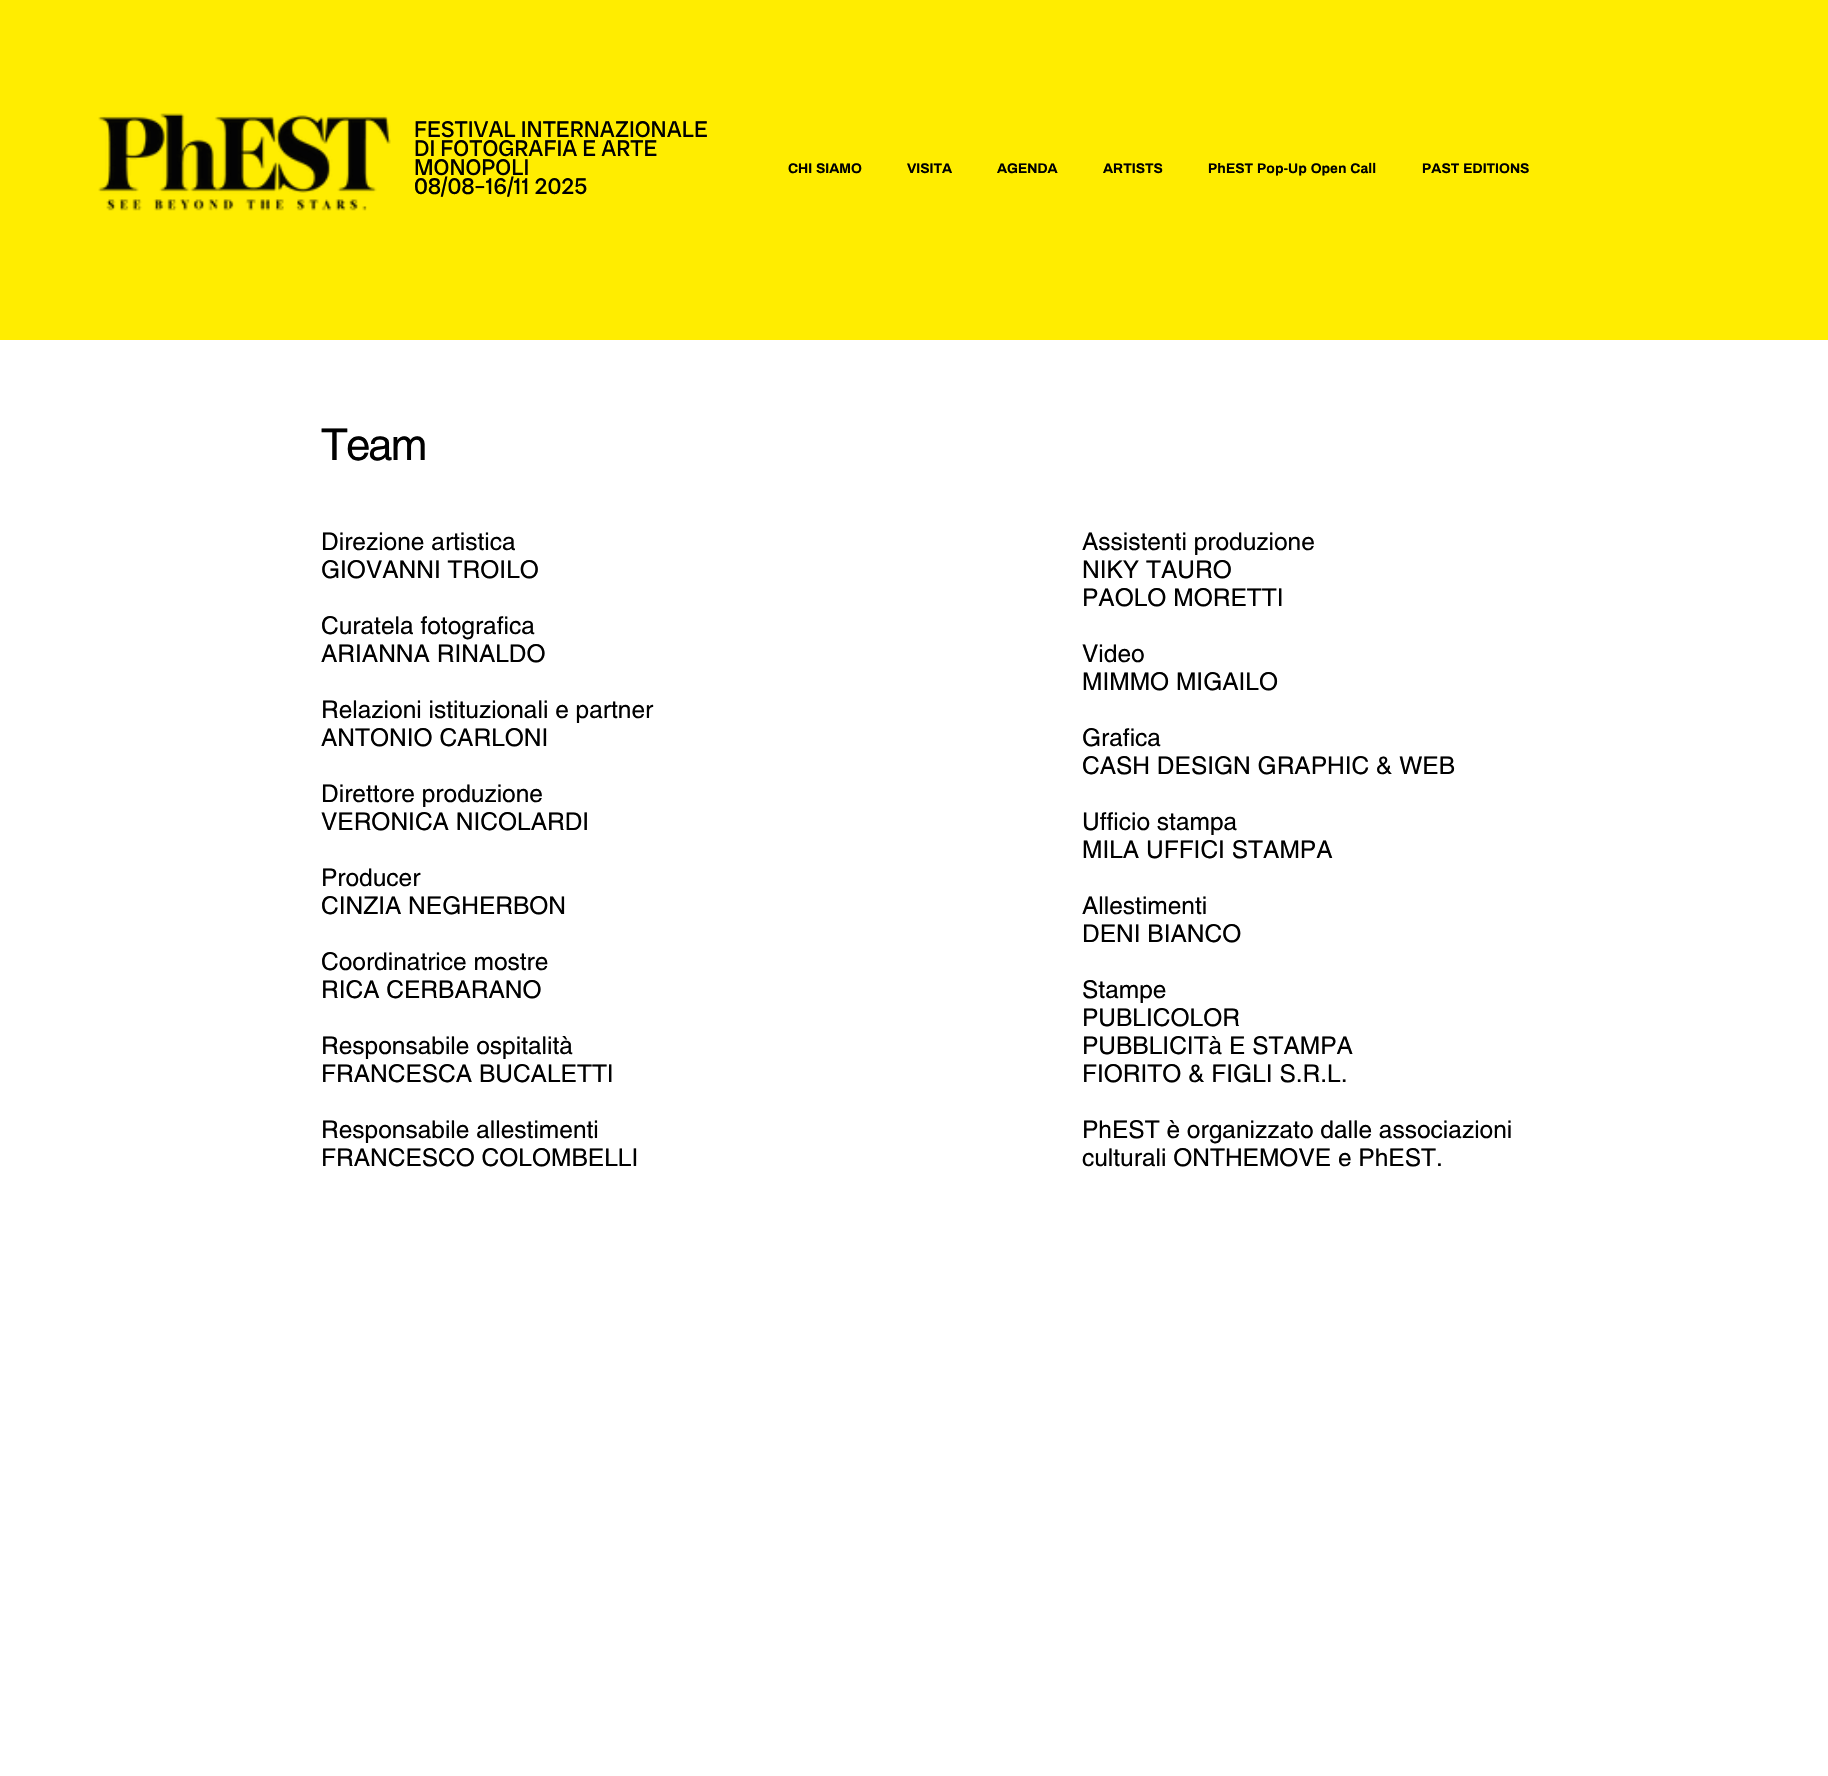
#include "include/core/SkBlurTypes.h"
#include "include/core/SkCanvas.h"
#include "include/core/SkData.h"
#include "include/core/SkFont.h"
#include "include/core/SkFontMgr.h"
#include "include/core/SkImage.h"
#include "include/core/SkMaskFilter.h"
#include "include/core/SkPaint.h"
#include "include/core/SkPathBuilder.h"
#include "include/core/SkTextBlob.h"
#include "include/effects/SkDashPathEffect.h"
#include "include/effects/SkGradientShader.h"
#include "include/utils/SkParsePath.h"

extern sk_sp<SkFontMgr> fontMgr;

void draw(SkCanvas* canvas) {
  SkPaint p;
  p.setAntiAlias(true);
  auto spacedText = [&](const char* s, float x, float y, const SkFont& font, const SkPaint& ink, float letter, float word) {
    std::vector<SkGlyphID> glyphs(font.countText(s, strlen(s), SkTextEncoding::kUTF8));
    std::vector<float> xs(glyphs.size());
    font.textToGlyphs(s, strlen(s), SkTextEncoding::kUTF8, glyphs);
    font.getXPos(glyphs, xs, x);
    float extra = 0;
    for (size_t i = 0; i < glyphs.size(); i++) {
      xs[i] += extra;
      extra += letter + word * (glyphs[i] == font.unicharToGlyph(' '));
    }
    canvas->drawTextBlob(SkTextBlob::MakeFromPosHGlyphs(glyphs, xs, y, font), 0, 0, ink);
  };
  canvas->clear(SK_ColorWHITE);
  p.setColor(SkColorSetRGB(255, 237, 0));
  canvas->drawRect(SkRect::MakeLTRB(0, 0, 1828, 340), p);
  canvas->drawImageRect(SkImages::DeferredFromEncodedData(SkData::MakeFromFileName("images/1.png")), SkRect::MakeLTRB(98, 113, 391, 211), SkSamplingOptions());
  SkFont font1(fontMgr->matchFamilyStyle("Radio Canada Big", SkFontStyle::Normal()), 22.75f);
  font1.setSubpixel(true);
  p.setColor(SK_ColorBLACK);
  canvas->drawString("FESTIVAL INTERNAZIONALE", 414, 137, font1, p);
  canvas->drawString("DI FOTOGRAFIA E ARTE", 414, 156, font1, p);
  canvas->drawString("MONOPOLI", 414, 175, font1, p);
  canvas->drawString("08/08–16/11 2025", 414, 194, font1, p);
  SkFont font2(fontMgr->matchFamilyStyle("Archivo", SkFontStyle::Bold()), 14);
  font2.setSubpixel(true);
  canvas->drawString("CHI SIAMO", 788, 173, font2, p);
  canvas->drawString("VISITA", 907, 173, font2, p);
  canvas->drawString("AGENDA", 997, 173, font2, p);
  canvas->drawString("ARTISTS", 1103, 173, font2, p);
  canvas->drawString("PhEST Pop-Up Open Call", 1208, 173, font2, p);
  canvas->drawString("PAST EDITIONS", 1422, 173, font2, p);
  SkFont font3(fontMgr->matchFamilyStyle("helvetica", SkFontStyle::Normal()), 44);
  font3.setSubpixel(true);
  spacedText("Team", 321, 460, font3, p, -2, 0);
  SkFont font4(fontMgr->matchFamilyStyle("helvetica", SkFontStyle::Normal()), 24.5f);
  font4.setSubpixel(true);
  canvas->drawString("Direzione artistica", 321, 550, font4, p);
  canvas->drawString("GIOVANNI TROILO", 321, 578, font4, p);
  canvas->drawString("Curatela fotografica", 321, 634, font4, p);
  canvas->drawString("ARIANNA RINALDO", 321, 662, font4, p);
  canvas->drawString("Relazioni istituzionali e partner", 321, 718, font4, p);
  canvas->drawString("ANTONIO CARLONI", 321, 746, font4, p);
  canvas->drawString("Direttore produzione", 321, 802, font4, p);
  canvas->drawString("VERONICA NICOLARDI", 321, 830, font4, p);
  canvas->drawString("Producer", 321, 886, font4, p);
  canvas->drawString("CINZIA NEGHERBON", 321, 914, font4, p);
  canvas->drawString("Coordinatrice mostre", 321, 970, font4, p);
  canvas->drawString("RICA CERBARANO", 321, 998, font4, p);
  canvas->drawString("Responsabile ospitalità", 321, 1054, font4, p);
  canvas->drawString("FRANCESCA BUCALETTI", 321, 1082, font4, p);
  canvas->drawString("Responsabile allestimenti", 321, 1138, font4, p);
  canvas->drawString("FRANCESCO COLOMBELLI", 321, 1166, font4, p);
  canvas->drawString("Assistenti produzione", 1082, 550, font4, p);
  canvas->drawString("NIKY TAURO", 1082, 578, font4, p);
  canvas->drawString("PAOLO MORETTI", 1082, 606, font4, p);
  canvas->drawString("Video", 1082, 662, font4, p);
  canvas->drawString("MIMMO MIGAILO", 1082, 690, font4, p);
  canvas->drawString("Grafica", 1082, 746, font4, p);
  canvas->drawString("CASH DESIGN GRAPHIC & WEB", 1082, 774, font4, p);
  canvas->drawString("Ufficio stampa", 1082, 830, font4, p);
  canvas->drawString("MILA UFFICI STAMPA", 1082, 858, font4, p);
  canvas->drawString("Allestimenti", 1082, 914, font4, p);
  canvas->drawString("DENI BIANCO", 1082, 942, font4, p);
  canvas->drawString("Stampe", 1082, 998, font4, p);
  canvas->drawString("PUBLICOLOR", 1082, 1026, font4, p);
  canvas->drawString("PUBBLICITà E STAMPA", 1082, 1054, font4, p);
  canvas->drawString("FIORITO & FIGLI S.R.L.", 1082, 1082, font4, p);
  canvas->drawString("PhEST è organizzato dalle associazioni", 1082, 1138, font4, p);
  canvas->drawString("culturali ONTHEMOVE e PhEST.", 1082, 1166, font4, p);
}
